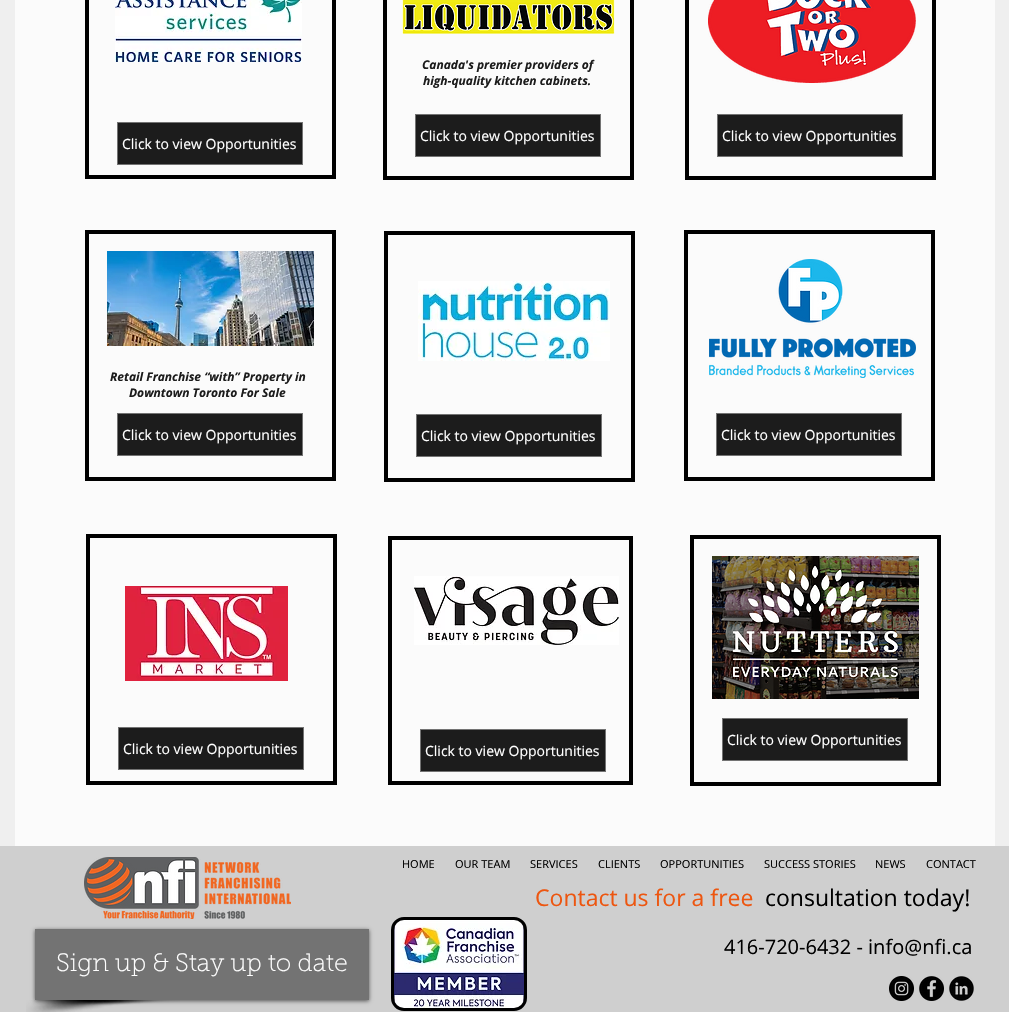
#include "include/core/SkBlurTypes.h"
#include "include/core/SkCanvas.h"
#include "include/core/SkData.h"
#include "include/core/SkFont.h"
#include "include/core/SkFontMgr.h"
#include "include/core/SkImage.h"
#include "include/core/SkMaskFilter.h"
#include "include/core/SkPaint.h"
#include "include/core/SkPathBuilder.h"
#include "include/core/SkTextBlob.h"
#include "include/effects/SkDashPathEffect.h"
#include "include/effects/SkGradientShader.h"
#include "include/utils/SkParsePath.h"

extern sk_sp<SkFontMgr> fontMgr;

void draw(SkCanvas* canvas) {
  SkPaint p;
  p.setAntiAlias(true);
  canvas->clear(SkColorSetRGB(239, 239, 239));
  p.setColor(SkColorSetRGB(251, 251, 251));
  canvas->drawRect(SkRect::MakeLTRB(15, 0, 995, 846), p);
  canvas->drawImageRect(SkImages::DeferredFromEncodedData(SkData::MakeFromFileName("images/1.png")), SkRect::MakeLTRB(402, 0, 615, 34), SkSamplingOptions());
  p.setStyle(SkPaint::kStroke_Style);
  p.setStrokeWidth(4);
  p.setColor(SK_ColorBLACK);
  canvas->drawPath(SkPathBuilder().moveTo(632, -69).lineTo(632, 178).lineTo(385, 178).lineTo(385, -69).close().detach(), p);
  canvas->drawPath(SkPathBuilder().moveTo(934, -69).lineTo(934, 178).lineTo(687, 178).lineTo(687, -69).close().detach(), p);
  canvas->drawImageRect(SkImages::DeferredFromEncodedData(SkData::MakeFromFileName("images/2.png")), SkRect::MakeLTRB(708, 0, 916, 83), SkSamplingOptions());
  p.setStyle(SkPaint::kFill_Style);
  p.setColor(SkColorSetRGB(28, 28, 28));
  canvas->drawRect(SkRect::MakeLTRB(415.5f, 114.5f, 600.5f, 156.5f), p);
  p.setStyle(SkPaint::kStroke_Style);
  p.setStrokeWidth(1);
  p.setColor(SkColorSetRGB(115, 115, 115));
  canvas->drawRect(SkRect::MakeLTRB(415.5f, 114.5f, 600.5f, 156.5f), p);
  p.setStyle(SkPaint::kFill_Style);
  p.setColor(SkColorSetRGB(28, 28, 28));
  canvas->drawRect(SkRect::MakeLTRB(717.5f, 114.5f, 902.5f, 156.5f), p);
  p.setStyle(SkPaint::kStroke_Style);
  p.setColor(SkColorSetRGB(115, 115, 115));
  canvas->drawRect(SkRect::MakeLTRB(717.5f, 114.5f, 902.5f, 156.5f), p);
  canvas->drawImageRect(SkImages::DeferredFromEncodedData(SkData::MakeFromFileName("images/3.png")), SkRect::MakeLTRB(115, 0, 302, 62), SkSamplingOptions());
  p.setStrokeWidth(4);
  p.setColor(SK_ColorBLACK);
  canvas->drawPath(SkPathBuilder().moveTo(334, -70).lineTo(334, 177).lineTo(87, 177).lineTo(87, -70).close().detach(), p);
  p.setStyle(SkPaint::kFill_Style);
  p.setColor(SkColorSetRGB(28, 28, 28));
  canvas->drawRect(SkRect::MakeLTRB(117.5f, 122.5f, 302.5f, 164.5f), p);
  p.setStyle(SkPaint::kStroke_Style);
  p.setStrokeWidth(1);
  p.setColor(SkColorSetRGB(115, 115, 115));
  canvas->drawRect(SkRect::MakeLTRB(117.5f, 122.5f, 302.5f, 164.5f), p);
  p.setStrokeWidth(4);
  p.setColor(SK_ColorBLACK);
  canvas->drawPath(SkPathBuilder().moveTo(334, 232).lineTo(334, 479).lineTo(87, 479).lineTo(87, 232).close().detach(), p);
  canvas->drawPath(SkPathBuilder().moveTo(633, 233).lineTo(633, 480).lineTo(386, 480).lineTo(386, 233).close().detach(), p);
  canvas->drawPath(SkPathBuilder().moveTo(933, 232).lineTo(933, 479).lineTo(686, 479).lineTo(686, 232).close().detach(), p);
  canvas->drawImageRect(SkImages::DeferredFromEncodedData(SkData::MakeFromFileName("images/4.png")), SkRect::MakeLTRB(107, 251, 314, 346), SkSamplingOptions());
  canvas->drawImageRect(SkImages::DeferredFromEncodedData(SkData::MakeFromFileName("images/5.png")), SkRect::MakeLTRB(418, 281, 610, 361), SkSamplingOptions());
  canvas->drawImageRect(SkImages::DeferredFromEncodedData(SkData::MakeFromFileName("images/6.png")), SkRect::MakeLTRB(709, 259, 916, 378), SkSamplingOptions());
  p.setStyle(SkPaint::kFill_Style);
  p.setColor(SkColorSetRGB(28, 28, 28));
  canvas->drawRect(SkRect::MakeLTRB(117.5f, 413.5f, 302.5f, 455.5f), p);
  p.setStyle(SkPaint::kStroke_Style);
  p.setStrokeWidth(1);
  p.setColor(SkColorSetRGB(115, 115, 115));
  canvas->drawRect(SkRect::MakeLTRB(117.5f, 413.5f, 302.5f, 455.5f), p);
  p.setStyle(SkPaint::kFill_Style);
  p.setColor(SkColorSetRGB(28, 28, 28));
  canvas->drawRect(SkRect::MakeLTRB(416.5f, 414.5f, 601.5f, 456.5f), p);
  p.setStyle(SkPaint::kStroke_Style);
  p.setColor(SkColorSetRGB(115, 115, 115));
  canvas->drawRect(SkRect::MakeLTRB(416.5f, 414.5f, 601.5f, 456.5f), p);
  p.setStyle(SkPaint::kFill_Style);
  p.setColor(SkColorSetRGB(28, 28, 28));
  canvas->drawRect(SkRect::MakeLTRB(716.5f, 413.5f, 901.5f, 455.5f), p);
  p.setStyle(SkPaint::kStroke_Style);
  p.setColor(SkColorSetRGB(115, 115, 115));
  canvas->drawRect(SkRect::MakeLTRB(716.5f, 413.5f, 901.5f, 455.5f), p);
  p.setStrokeWidth(4);
  p.setColor(SK_ColorBLACK);
  canvas->drawPath(SkPathBuilder().moveTo(631, 538).lineTo(631, 783).lineTo(390, 783).lineTo(390, 538).close().detach(), p);
  canvas->drawPath(SkPathBuilder().moveTo(939, 537).lineTo(939, 784).lineTo(692, 784).lineTo(692, 537).close().detach(), p);
  canvas->drawImageRect(SkImages::DeferredFromEncodedData(SkData::MakeFromFileName("images/7.png")), SkRect::MakeLTRB(414, 576, 619, 645), SkSamplingOptions());
  canvas->drawImageRect(SkImages::DeferredFromEncodedData(SkData::MakeFromFileName("images/8.png")), SkRect::MakeLTRB(712, 556, 919, 699), SkSamplingOptions());
  p.setStyle(SkPaint::kFill_Style);
  p.setColor(SkColorSetRGB(28, 28, 28));
  canvas->drawRect(SkRect::MakeLTRB(722.5f, 718.5f, 907.5f, 760.5f), p);
  p.setStyle(SkPaint::kStroke_Style);
  p.setStrokeWidth(1);
  p.setColor(SkColorSetRGB(115, 115, 115));
  canvas->drawRect(SkRect::MakeLTRB(722.5f, 718.5f, 907.5f, 760.5f), p);
  canvas->drawImageRect(SkImages::DeferredFromEncodedData(SkData::MakeFromFileName("images/9.png")), SkRect::MakeLTRB(125, 586, 288, 681), SkSamplingOptions());
  p.setStrokeWidth(4);
  p.setColor(SK_ColorBLACK);
  canvas->drawPath(SkPathBuilder().moveTo(335, 536).lineTo(335, 783).lineTo(88, 783).lineTo(88, 536).close().detach(), p);
  p.setStyle(SkPaint::kFill_Style);
  p.setColor(SkColorSetRGB(28, 28, 28));
  canvas->drawRect(SkRect::MakeLTRB(118.5f, 727.5f, 303.5f, 769.5f), p);
  p.setStyle(SkPaint::kStroke_Style);
  p.setStrokeWidth(1);
  p.setColor(SkColorSetRGB(115, 115, 115));
  canvas->drawRect(SkRect::MakeLTRB(118.5f, 727.5f, 303.5f, 769.5f), p);
  p.setStyle(SkPaint::kFill_Style);
  p.setColor(SkColorSetRGB(28, 28, 28));
  canvas->drawRect(SkRect::MakeLTRB(420.5f, 729.5f, 605.5f, 771.5f), p);
  p.setStyle(SkPaint::kStroke_Style);
  p.setColor(SkColorSetRGB(115, 115, 115));
  canvas->drawRect(SkRect::MakeLTRB(420.5f, 729.5f, 605.5f, 771.5f), p);
  p.setStyle(SkPaint::kFill_Style);
  p.setColor(SkColorSetRGB(207, 207, 207));
  canvas->drawRect(SkRect::MakeLTRB(0, 846, 1009, 1012), p);
  p.setColor(SK_ColorBLACK);
  canvas->drawRoundRect(SkRect::MakeLTRB(392.5f, 918.5f, 525.5f, 1009.5f), 11.5f, 11.5f, p);
  p.setStyle(SkPaint::kStroke_Style);
  p.setStrokeWidth(3);
  canvas->drawRoundRect(SkRect::MakeLTRB(392.5f, 918.5f, 525.5f, 1009.5f), 11.5f, 11.5f, p);
  canvas->drawImageRect(SkImages::DeferredFromEncodedData(SkData::MakeFromFileName("images/10.png")), SkRect::MakeLTRB(394, 920, 524, 1008), SkSamplingOptions());
  canvas->drawImageRect(SkImages::DeferredFromEncodedData(SkData::MakeFromFileName("images/11.png")), SkRect::MakeLTRB(84, 857, 291, 919), SkSamplingOptions());
  canvas->drawImageRect(SkImages::DeferredFromEncodedData(SkData::MakeFromFileName("images/12.png")), SkRect::MakeLTRB(26, 1000, 180, 1012), SkSamplingOptions());
  p.setStyle(SkPaint::kFill_Style);
  p.setColor(SkColorSetARGB(153, 0, 0, 0));
  p.setMaskFilter(SkMaskFilter::MakeBlur(kNormal_SkBlurStyle, 2));
  canvas->drawRect(SkRect::MakeLTRB(35, 930, 369, 1001), p);
  p.setMaskFilter(nullptr);
  p.setColor(SkColorSetRGB(115, 115, 115));
  canvas->drawRect(SkRect::MakeLTRB(35, 929, 369, 1000), p);
  canvas->drawImageRect(SkImages::DeferredFromEncodedData(SkData::MakeFromFileName("images/13.png")), SkRect::MakeLTRB(889, 976, 914, 1001), SkSamplingOptions());
  canvas->drawImageRect(SkImages::DeferredFromEncodedData(SkData::MakeFromFileName("images/14.png")), SkRect::MakeLTRB(919, 976, 944, 1001), SkSamplingOptions());
  canvas->drawImageRect(SkImages::DeferredFromEncodedData(SkData::MakeFromFileName("images/15.png")), SkRect::MakeLTRB(949, 976, 974, 1001), SkSamplingOptions());
  SkFont font1(fontMgr->matchFamilyStyle("Open Sans", SkFontStyle::BoldItalic()), 12);
  font1.setSubpixel(true);
  p.setColor(SkColorSetRGB(28, 28, 28));
  canvas->drawString("Canada's premier providers of", 422, 69, font1, p);
  canvas->drawString("high-quality kitchen cabinets.", 423, 85, font1, p);
  SkFont font2(fontMgr->matchFamilyStyle("Open Sans", SkFontStyle::Normal()), 14);
  font2.setSubpixel(true);
  p.setColor(SK_ColorWHITE);
  canvas->drawString("Click to view Opportunities", 420, 141, font2, p);
  canvas->drawString("Click to view Opportunities", 722, 141, font2, p);
  canvas->drawString("Click to view Opportunities", 122, 149, font2, p);
  p.setColor(SkColorSetRGB(28, 28, 28));
  canvas->drawString("Retail Franchise “with” Property in", 110, 381, font1, p);
  canvas->drawString("Downtown Toronto For Sale", 129, 397, font1, p);
  p.setColor(SK_ColorWHITE);
  canvas->drawString("Click to view Opportunities", 122, 440, font2, p);
  canvas->drawString("Click to view Opportunities", 421, 441, font2, p);
  canvas->drawString("Click to view Opportunities", 721, 440, font2, p);
  canvas->drawString("Click to view Opportunities", 727, 745, font2, p);
  canvas->drawString("Click to view Opportunities", 123, 754, font2, p);
  canvas->drawString("Click to view Opportunities", 425, 756, font2, p);
  SkFont font3(fontMgr->matchFamilyStyle("Open Sans", SkFontStyle::Normal()), 11);
  font3.setSubpixel(true);
  p.setColor(SK_ColorBLACK);
  canvas->drawString("HOME", 402, 868, font3, p);
  canvas->drawString("OUR TEAM", 455, 868, font3, p);
  canvas->drawString("SERVICES", 530, 868, font3, p);
  canvas->drawString("CLIENTS", 598, 868, font3, p);
  canvas->drawString("OPPORTUNITIES", 660, 868, font3, p);
  canvas->drawString("SUCCESS STORIES", 764, 868, font3, p);
  canvas->drawString("NEWS", 875, 868, font3, p);
  canvas->drawString("CONTACT", 926, 868, font3, p);
  SkFont font4(fontMgr->matchFamilyStyle("Open Sans", SkFontStyle::Normal()), 23);
  font4.setSubpixel(true);
  p.setColor(SkColorSetRGB(237, 86, 16));
  canvas->drawString("Contact us for a free", 535, 906, font4, p);
  p.setColor(SK_ColorBLACK);
  canvas->drawString("consultation today!", 765, 906, font4, p);
  SkFont font5(fontMgr->matchFamilyStyle("Open Sans", SkFontStyle::Normal()), 20);
  font5.setSubpixel(true);
  canvas->drawString("416-720-6432 - info@nfi.ca", 724, 954, font5, p);
  SkFont font6(fontMgr->matchFamilyStyle("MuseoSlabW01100", SkFontStyle(100, SkFontStyle::kNormal_Width, SkFontStyle::kUpright_Slant)), 25);
  font6.setSubpixel(true);
  p.setColor(SK_ColorWHITE);
  canvas->drawString("Sign up & Stay up to date", 56, 971, font6, p);
}
